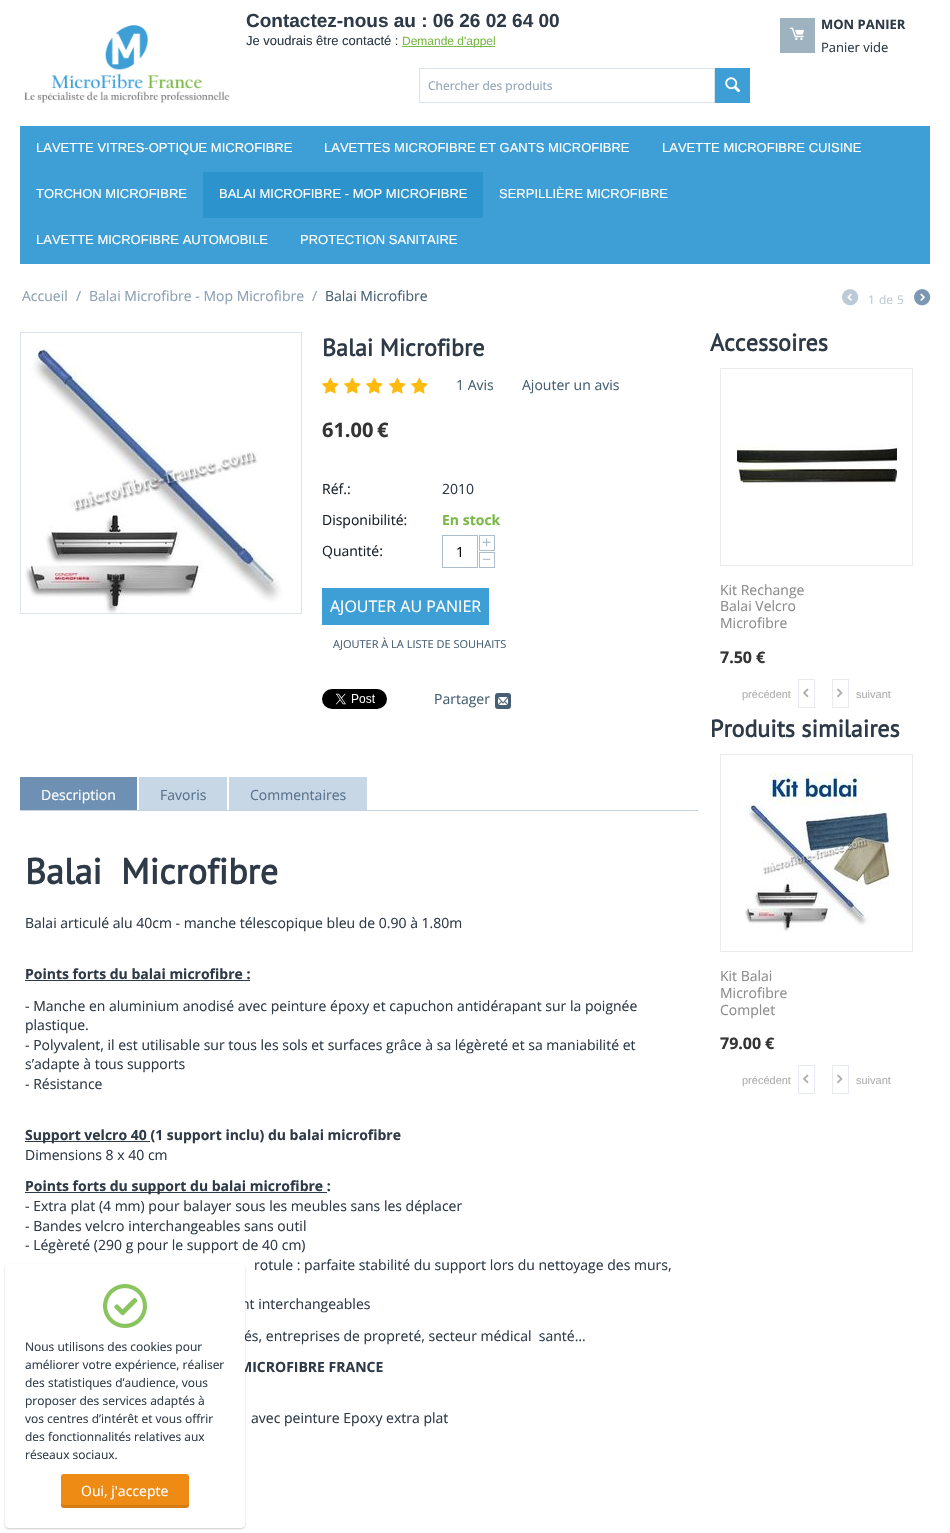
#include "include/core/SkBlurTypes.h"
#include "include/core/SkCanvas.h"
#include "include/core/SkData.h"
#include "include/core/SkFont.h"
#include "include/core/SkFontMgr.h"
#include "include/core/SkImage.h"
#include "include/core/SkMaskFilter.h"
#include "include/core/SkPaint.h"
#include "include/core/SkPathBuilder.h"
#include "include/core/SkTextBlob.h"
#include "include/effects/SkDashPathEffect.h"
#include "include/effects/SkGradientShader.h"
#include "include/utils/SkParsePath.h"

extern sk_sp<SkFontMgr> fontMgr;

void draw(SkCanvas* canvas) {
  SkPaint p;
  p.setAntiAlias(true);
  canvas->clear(SK_ColorWHITE);
  canvas->drawImageRect(SkImages::DeferredFromEncodedData(SkData::MakeFromFileName("images/1.png")), SkRect::MakeLTRB(24, 25, 230, 103), SkSamplingOptions());
  p.setColor(SkColorSetRGB(122, 184, 71));
  canvas->drawRect(SkRect::MakeLTRB(402, 46, 495, 47), p);
  p.setColor(SkColorSetRGB(159, 178, 192));
  canvas->drawRect(SkRect::MakeLTRB(780, 18, 815, 53), p);
  canvas->drawImageRect(SkImages::DeferredFromEncodedData(SkData::MakeFromFileName("images/2.png")), SkRect::MakeLTRB(790, 27, 804, 41), SkSamplingOptions());
  p.setStyle(SkPaint::kStroke_Style);
  p.setStrokeWidth(1);
  p.setColor(SkColorSetRGB(220, 227, 234));
  canvas->drawRect(SkRect::MakeLTRB(419.5f, 68.5f, 714.5f, 102.5f), p);
  p.setStyle(SkPaint::kFill_Style);
  p.setColor(SkColorSetRGB(61, 159, 213));
  canvas->drawRect(SkRect::MakeLTRB(715, 68, 750, 103), p);
  canvas->drawImageRect(SkImages::DeferredFromEncodedData(SkData::MakeFromFileName("images/3.png")), SkRect::MakeLTRB(725, 77, 741, 93), SkSamplingOptions());
  canvas->drawRect(SkRect::MakeLTRB(20, 126, 930, 264), p);
  p.setColor(SkColorSetRGB(44, 147, 204));
  canvas->drawRect(SkRect::MakeLTRB(203, 172, 483, 218), p);
  canvas->drawImageRect(SkImages::DeferredFromEncodedData(SkData::MakeFromFileName("images/4.png")), SkRect::MakeLTRB(842, 289, 859, 306), SkSamplingOptions());
  canvas->drawImageRect(SkImages::DeferredFromEncodedData(SkData::MakeFromFileName("images/5.png")), SkRect::MakeLTRB(914, 289, 931, 306), SkSamplingOptions());
  p.setStyle(SkPaint::kStroke_Style);
  p.setColor(SkColorSetRGB(220, 227, 234));
  canvas->drawRect(SkRect::MakeLTRB(20.5f, 332.5f, 301.5f, 613.5f), p);
  canvas->drawImageRect(SkImages::DeferredFromEncodedData(SkData::MakeFromFileName("images/6.png")), SkRect::MakeLTRB(25, 348, 282, 613), SkSamplingOptions());
  canvas->drawImageRect(SkImages::DeferredFromEncodedData(SkData::MakeFromFileName("images/7.png")), SkRect::MakeLTRB(322, 377, 339, 394), SkSamplingOptions());
  canvas->drawImageRect(SkImages::DeferredFromEncodedData(SkData::MakeFromFileName("images/7.png")), SkRect::MakeLTRB(344, 377, 361, 394), SkSamplingOptions());
  canvas->drawImageRect(SkImages::DeferredFromEncodedData(SkData::MakeFromFileName("images/7.png")), SkRect::MakeLTRB(366, 377, 383, 394), SkSamplingOptions());
  canvas->drawImageRect(SkImages::DeferredFromEncodedData(SkData::MakeFromFileName("images/7.png")), SkRect::MakeLTRB(389, 377, 406, 394), SkSamplingOptions());
  canvas->drawImageRect(SkImages::DeferredFromEncodedData(SkData::MakeFromFileName("images/7.png")), SkRect::MakeLTRB(411, 377, 428, 394), SkSamplingOptions());
  p.setColor(SkColorSetRGB(172, 189, 205));
  canvas->drawRect(SkRect::MakeLTRB(479.5f, 535.5f, 494.5f, 550.5f), p);
  canvas->drawRect(SkRect::MakeLTRB(442.5f, 535.5f, 477.5f, 567.5f), p);
  canvas->drawRect(SkRect::MakeLTRB(479.5f, 552.5f, 494.5f, 567.5f), p);
  p.setStyle(SkPaint::kFill_Style);
  p.setColor(SkColorSetRGB(61, 159, 213));
  canvas->drawRect(SkRect::MakeLTRB(322, 588, 489, 625), p);
  canvas->drawImageRect(SkImages::DeferredFromEncodedData(SkData::MakeFromFileName("images/8.png")), SkRect::MakeLTRB(322, 689, 387, 709), SkSamplingOptions());
  canvas->drawImageRect(SkImages::DeferredFromEncodedData(SkData::MakeFromFileName("images/9.png")), SkRect::MakeLTRB(495, 693, 511, 709), SkSamplingOptions());
  p.setColor(SkColorSetRGB(198, 209, 221));
  canvas->drawRect(SkRect::MakeLTRB(20, 810, 698, 811), p);
  p.setColor(SkColorSetRGB(109, 144, 179));
  canvas->drawRect(SkRect::MakeLTRB(20, 777, 137, 810), p);
  p.setColor(SkColorSetRGB(200, 215, 230));
  canvas->drawRect(SkRect::MakeLTRB(139, 777, 227, 810), p);
  canvas->drawRect(SkRect::MakeLTRB(229, 777, 367, 810), p);
  p.setColor(SkColorSetRGB(46, 58, 71));
  canvas->drawRect(SkRect::MakeLTRB(25, 980, 250, 981), p);
  canvas->drawRect(SkRect::MakeLTRB(25, 1141, 150, 1142), p);
  canvas->drawRect(SkRect::MakeLTRB(25, 1192, 327, 1193), p);
  p.setStyle(SkPaint::kStroke_Style);
  p.setColor(SkColorSetRGB(235, 235, 235));
  canvas->drawRect(SkRect::MakeLTRB(720.5f, 368.5f, 912.5f, 565.5f), p);
  canvas->drawImageRect(SkImages::DeferredFromEncodedData(SkData::MakeFromFileName("images/10.png")), SkRect::MakeLTRB(737, 444, 897, 483), SkSamplingOptions());
  p.setColor(SkColorSetRGB(231, 235, 240));
  canvas->drawRect(SkRect::MakeLTRB(798.5f, 679.5f, 814.5f, 707.5f), p);
  canvas->drawImageRect(SkImages::DeferredFromEncodedData(SkData::MakeFromFileName("images/11.png")), SkRect::MakeLTRB(803, 688, 809, 698), SkSamplingOptions());
  canvas->drawRect(SkRect::MakeLTRB(832.5f, 679.5f, 848.5f, 707.5f), p);
  canvas->drawImageRect(SkImages::DeferredFromEncodedData(SkData::MakeFromFileName("images/12.png")), SkRect::MakeLTRB(837, 688, 843, 698), SkSamplingOptions());
  p.setColor(SkColorSetRGB(235, 235, 235));
  canvas->drawRect(SkRect::MakeLTRB(720.5f, 754.5f, 912.5f, 951.5f), p);
  canvas->drawImageRect(SkImages::DeferredFromEncodedData(SkData::MakeFromFileName("images/13.png")), SkRect::MakeLTRB(745, 773, 897, 933), SkSamplingOptions());
  p.setColor(SkColorSetRGB(231, 235, 240));
  canvas->drawRect(SkRect::MakeLTRB(798.5f, 1065.5f, 814.5f, 1093.5f), p);
  canvas->drawImageRect(SkImages::DeferredFromEncodedData(SkData::MakeFromFileName("images/11.png")), SkRect::MakeLTRB(803, 1074, 809, 1084), SkSamplingOptions());
  canvas->drawRect(SkRect::MakeLTRB(832.5f, 1065.5f, 848.5f, 1093.5f), p);
  canvas->drawImageRect(SkImages::DeferredFromEncodedData(SkData::MakeFromFileName("images/12.png")), SkRect::MakeLTRB(837, 1074, 843, 1084), SkSamplingOptions());
  p.setStyle(SkPaint::kFill_Style);
  p.setColor(SkColorSetARGB(51, 0, 0, 0));
  p.setMaskFilter(SkMaskFilter::MakeBlur(kNormal_SkBlurStyle, 1));
  canvas->drawRoundRect(SkRect::MakeLTRB(5, 1265, 245, 1529), 4, 4, p);
  p.setMaskFilter(nullptr);
  SkFont font1(fontMgr->matchFamilyStyle("Liberation Sans", SkFontStyle::Bold()), 19);
  font1.setSubpixel(true);
  p.setColor(SkColorSetRGB(46, 58, 71));
  canvas->drawString("Contactez-nous au : 06 26 02 64 00", 246, 27, font1, p);
  SkFont font2(fontMgr->matchFamilyStyle("Liberation Sans", SkFontStyle::Normal()), 13);
  font2.setSubpixel(true);
  canvas->drawString("Je voudrais être contacté :", 246, 45, font2, p);
  SkFont font3(fontMgr->matchFamilyStyle("Liberation Sans", SkFontStyle::Normal()), 12);
  font3.setSubpixel(true);
  p.setColor(SkColorSetRGB(122, 184, 71));
  canvas->drawString("Demande d'appel", 402, 45, font3, p);
  SkFont font4(fontMgr->matchFamilyStyle("Open Sans", SkFontStyle::Bold()), 13);
  font4.setSubpixel(true);
  p.setColor(SkColorSetRGB(46, 58, 71));
  canvas->drawString("MON PANIER", 821, 29, font4, p);
  SkFont font5(fontMgr->matchFamilyStyle("Open Sans", SkFontStyle::Normal()), 13);
  font5.setSubpixel(true);
  canvas->drawString("Panier vide", 821, 52, font5, p);
  SkFont font6(fontMgr->matchFamilyStyle("Open Sans", SkFontStyle::Normal()), 12);
  font6.setSubpixel(true);
  p.setColor(SkColorSetRGB(140, 160, 181));
  canvas->drawString("Chercher des produits", 428, 90, font6, p);
  p.setColor(SK_ColorWHITE);
  canvas->drawString("LAVETTE VITRES-OPTIQUE MICROFIBRE", 36, 152, font2, p);
  canvas->drawString("LAVETTES MICROFIBRE ET GANTS MICROFIBRE", 324, 152, font2, p);
  canvas->drawString("LAVETTE MICROFIBRE CUISINE", 662, 152, font2, p);
  canvas->drawString("TORCHON MICROFIBRE", 36, 198, font2, p);
  canvas->drawString("BALAI MICROFIBRE - MOP MICROFIBRE", 219, 198, font2, p);
  canvas->drawString("SERPILLIÈRE MICROFIBRE", 499, 198, font2, p);
  canvas->drawString("LAVETTE MICROFIBRE AUTOMOBILE", 36, 244, font2, p);
  canvas->drawString("PROTECTION SANITAIRE", 300, 244, font2, p);
  SkFont font7(fontMgr->matchFamilyStyle("Open Sans", SkFontStyle::Normal()), 14);
  font7.setSubpixel(true);
  p.setColor(SkColorSetRGB(140, 160, 181));
  canvas->drawString("Accueil", 22, 301, font7, p);
  canvas->drawString("/", 76, 301, font7, p);
  canvas->drawString("Balai Microfibre - Mop Microfibre", 89, 301, font7, p);
  canvas->drawString("/", 312, 301, font7, p);
  p.setColor(SkColorSetRGB(70, 95, 115));
  canvas->drawString("Balai Microfibre", 325, 301, font7, p);
  p.setColor(SkColorSetRGB(188, 202, 215));
  canvas->drawString("1", 868, 304, font6, p);
  canvas->drawString("de", 879, 304, font6, p);
  canvas->drawString("5", 897, 304, font6, p);
  SkFont font8(fontMgr->matchFamilyStyle("PT Sans", SkFontStyle::Bold()), 24);
  font8.setSubpixel(true);
  p.setColor(SkColorSetRGB(46, 58, 71));
  canvas->drawString("Balai Microfibre", 322, 356, font8, p);
  p.setColor(SkColorSetRGB(70, 95, 115));
  canvas->drawString("1 Avis", 456, 390, font7, p);
  canvas->drawString("Ajouter un avis", 522, 390, font7, p);
  SkFont font9(fontMgr->matchFamilyStyle("Open Sans", SkFontStyle::Bold()), 20);
  font9.setSubpixel(true);
  p.setColor(SkColorSetRGB(52, 52, 52));
  canvas->drawString("61.00", 322, 437, font9, p);
  canvas->drawString("€", 377, 437, font9, p);
  p.setColor(SkColorSetRGB(26, 33, 40));
  canvas->drawString("Réf.:", 322, 494, font7, p);
  p.setColor(SkColorSetRGB(46, 58, 71));
  canvas->drawString("2010", 442, 494, font7, p);
  p.setColor(SkColorSetRGB(26, 33, 40));
  canvas->drawString("Disponibilité:", 322, 525, font7, p);
  SkFont font10(fontMgr->matchFamilyStyle("Open Sans", SkFontStyle::Bold()), 14);
  font10.setSubpixel(true);
  p.setColor(SkColorSetRGB(122, 184, 71));
  canvas->drawString("En stock", 442, 525, font10, p);
  p.setColor(SkColorSetRGB(26, 33, 40));
  canvas->drawString("Quantité:", 322, 556, font7, p);
  SkFont font11(fontMgr->matchFamilyStyle("Open Sans", SkFontStyle::Normal()), 16);
  font11.setSubpixel(true);
  p.setColor(SkColorSetRGB(172, 189, 205));
  canvas->drawString("+", 482, 548, font11, p);
  p.setColor(SK_ColorBLACK);
  canvas->drawString("1", 456, 557, font7, p);
  p.setColor(SkColorSetRGB(172, 189, 205));
  canvas->drawString("−", 482, 565, font11, p);
  p.setColor(SK_ColorWHITE);
  canvas->drawString("AJOUTER AU PANIER", 330, 612, font11, p);
  SkFont font12(fontMgr->matchFamilyStyle("Open Sans", SkFontStyle::Normal()), 11);
  font12.setSubpixel(true);
  p.setColor(SkColorSetRGB(70, 95, 115));
  canvas->drawString("AJOUTER À LA LISTE DE SOUHAITS", 333, 648, font12, p);
  canvas->drawString("Partager", 434, 704, font7, p);
  p.setColor(SK_ColorWHITE);
  canvas->drawString("Description", 41, 800, font7, p);
  p.setColor(SkColorSetRGB(86, 113, 140));
  canvas->drawString("Favoris", 160, 800, font7, p);
  canvas->drawString("Commentaires", 250, 800, font7, p);
  SkFont font13(fontMgr->matchFamilyStyle("PT Sans", SkFontStyle::Bold()), 36);
  font13.setSubpixel(true);
  p.setColor(SkColorSetRGB(46, 58, 71));
  canvas->drawString("Balai  Microfibre", 25, 884, font13, p);
  canvas->drawString("Balai articulé alu 40cm - manche télescopique bleu de 0.90 à 1.80m", 25, 928, font7, p);
  canvas->drawString("Points forts du balai microfibre :", 25, 979, font10, p);
  canvas->drawString("- Manche en aluminium anodisé avec peinture époxy et capuchon antidérapant sur la poignée", 25, 1011, font7, p);
  canvas->drawString("plastique.", 25, 1030, font7, p);
  canvas->drawString("- Polyvalent, il est utilisable sur tous les sols et surfaces grâce à sa légèreté et sa maniabilité et", 25, 1050, font7, p);
  canvas->drawString("s’adapte à tous supports", 25, 1069, font7, p);
  canvas->drawString("- Résistance", 25, 1089, font7, p);
  canvas->drawString("Support velcro 40 (1 support inclu) du balai microfibre", 25, 1140, font10, p);
  canvas->drawString("Dimensions 8 x 40 cm", 25, 1160, font7, p);
  canvas->drawString("Points forts du support du balai microfibre :", 25, 1191, font10, p);
  canvas->drawString("- Extra plat (4 mm) pour balayer sous les meubles sans les déplacer", 25, 1211, font7, p);
  canvas->drawString("- Bandes velcro interchangeables sans outil", 25, 1231, font7, p);
  canvas->drawString("- Légèreté (290 g pour le support de 40 cm)", 25, 1250, font7, p);
  canvas->drawString("rotule : parfaite stabilité du support lors du nettoyage des murs,", 254, 1270, font7, p);
  canvas->drawString("nt interchangeables", 241, 1309, font7, p);
  canvas->drawString("és, entreprises de propreté, secteur médical  santé…", 244, 1341, font7, p);
  canvas->drawString("MICROFIBRE FRANCE", 239, 1372, font10, p);
  canvas->drawString("avec peinture Epoxy extra plat", 251, 1423, font7, p);
  canvas->drawString("Accessoires", 710, 351, font8, p);
  p.setColor(SkColorSetRGB(141, 140, 140));
  canvas->drawString("Kit Rechange", 720, 595, font7, p);
  canvas->drawString("Balai Velcro", 720, 611, font7, p);
  canvas->drawString("Microfibre", 720, 628, font7, p);
  SkFont font14(fontMgr->matchFamilyStyle("Open Sans", SkFontStyle::Bold()), 16);
  font14.setSubpixel(true);
  p.setColor(SkColorSetRGB(52, 52, 52));
  canvas->drawString("7.50", 720, 663, font14, p);
  canvas->drawString("€", 756, 663, font14, p);
  SkFont font15(fontMgr->matchFamilyStyle("Liberation Sans", SkFontStyle::Normal()), 11);
  font15.setSubpixel(true);
  p.setColor(SkColorSetRGB(175, 175, 175));
  canvas->drawString("précédent", 742, 698, font15, p);
  canvas->drawString("suivant", 856, 698, font15, p);
  p.setColor(SkColorSetRGB(46, 58, 71));
  canvas->drawString("Produits similaires", 710, 737, font8, p);
  p.setColor(SkColorSetRGB(141, 140, 140));
  canvas->drawString("Kit Balai", 720, 981, font7, p);
  canvas->drawString("Microfibre", 720, 998, font7, p);
  canvas->drawString("Complet", 720, 1015, font7, p);
  p.setColor(SkColorSetRGB(52, 52, 52));
  canvas->drawString("79.00", 720, 1049, font14, p);
  canvas->drawString("€", 765, 1049, font14, p);
  p.setColor(SkColorSetRGB(175, 175, 175));
  canvas->drawString("précédent", 742, 1084, font15, p);
  canvas->drawString("suivant", 856, 1084, font15, p);
  p.setColor(SK_ColorWHITE);
  canvas->drawRoundRect(SkRect::MakeLTRB(5, 1264, 245, 1528), 4, 4, p);
  canvas->drawImageRect(SkImages::DeferredFromEncodedData(SkData::MakeFromFileName("images/14.png")), SkRect::MakeLTRB(103, 1284, 147, 1328), SkSamplingOptions());
  p.setColor(SkColorSetRGB(46, 58, 71));
  canvas->drawString("Nous utilisons des cookies pour", 25, 1351, font6, p);
  canvas->drawString("améliorer votre expérience, réaliser", 25, 1369, font6, p);
  canvas->drawString("des statistiques d’audience, vous", 25, 1387, font6, p);
  canvas->drawString("proposer des services adaptés à", 25, 1405, font6, p);
  canvas->drawString("vos centres d’intérêt et vous offrir", 25, 1423, font6, p);
  canvas->drawString("des fonctionnalités relatives aux", 25, 1441, font6, p);
  canvas->drawString("réseaux sociaux.", 25, 1459, font6, p);
  p.setColor(SkColorSetRGB(238, 139, 21));
  canvas->drawRoundRect(SkRect::MakeLTRB(61, 1474, 189, 1508), 3, 3, p);
  p.setColor(SkColorSetARGB(26, 0, 0, 0));
  canvas->drawPath(SkPathBuilder().moveTo(61, 1502).lineTo(61, 1505).cubicTo(61, 1507, 62, 1508, 64, 1508).lineTo(186, 1508).cubicTo(188, 1508, 189, 1507, 189, 1505).lineTo(189, 1502).cubicTo(189, 1504, 188, 1505, 186, 1505).lineTo(64, 1505).cubicTo(62, 1505, 61, 1504, 61, 1502).close().detach(), p);
  p.setColor(SK_ColorWHITE);
  canvas->drawString("Oui, j'accepte", 81, 1496, font7, p);
}
